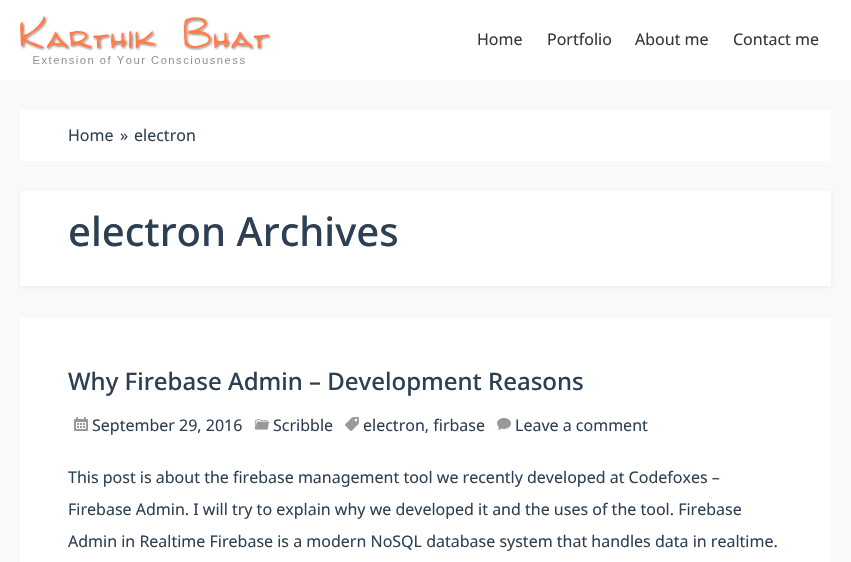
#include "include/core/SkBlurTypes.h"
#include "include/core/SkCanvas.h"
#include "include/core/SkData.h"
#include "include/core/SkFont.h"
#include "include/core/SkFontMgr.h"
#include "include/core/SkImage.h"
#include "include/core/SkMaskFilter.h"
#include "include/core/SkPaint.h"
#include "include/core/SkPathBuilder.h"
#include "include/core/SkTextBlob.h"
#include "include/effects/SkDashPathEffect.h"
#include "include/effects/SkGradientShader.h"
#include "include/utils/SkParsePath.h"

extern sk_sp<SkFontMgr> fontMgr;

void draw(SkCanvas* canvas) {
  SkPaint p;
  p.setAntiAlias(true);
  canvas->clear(SkColorSetRGB(248, 249, 251));
  p.setColor(SK_ColorWHITE);
  canvas->drawRect(SkRect::MakeLTRB(0, 0, 851, 80), p);
  canvas->drawImageRect(SkImages::DeferredFromEncodedData(SkData::MakeFromFileName("images/1.png")), SkRect::MakeLTRB(20, 16, 270, 64), SkSamplingOptions());
  canvas->drawRect(SkRect::MakeLTRB(20, 110, 831, 161), p);
  p.setColor(SkColorSetARGB(15, 0, 0, 0));
  p.setMaskFilter(SkMaskFilter::MakeBlur(kNormal_SkBlurStyle, 1.5f));
  canvas->drawRect(SkRect::MakeLTRB(20, 192, 831, 287), p);
  p.setMaskFilter(nullptr);
  p.setColor(SK_ColorWHITE);
  canvas->drawRect(SkRect::MakeLTRB(20, 191, 831, 286), p);
  canvas->drawRect(SkRect::MakeLTRB(20, 318, 831, 562), p);
  canvas->drawImageRect(SkImages::DeferredFromEncodedData(SkData::MakeFromFileName("images/2.png")), SkRect::MakeLTRB(74, 417, 88, 431), SkSamplingOptions());
  canvas->drawImageRect(SkImages::DeferredFromEncodedData(SkData::MakeFromFileName("images/3.png")), SkRect::MakeLTRB(255, 419, 269, 430), SkSamplingOptions());
  canvas->drawImageRect(SkImages::DeferredFromEncodedData(SkData::MakeFromFileName("images/4.png")), SkRect::MakeLTRB(345, 417, 359, 431), SkSamplingOptions());
  canvas->drawImageRect(SkImages::DeferredFromEncodedData(SkData::MakeFromFileName("images/5.png")), SkRect::MakeLTRB(497, 418, 511, 430), SkSamplingOptions());
  SkFont font1(fontMgr->matchFamilyStyle("Noto Sans", SkFontStyle::Normal()), 16);
  font1.setSubpixel(true);
  p.setColor(SkColorSetRGB(54, 54, 54));
  canvas->drawString("Home", 477, 45, font1, p);
  canvas->drawString("Portfolio", 547, 45, font1, p);
  canvas->drawString("About me", 635, 45, font1, p);
  canvas->drawString("Contact me", 733, 45, font1, p);
  p.setColor(SkColorSetRGB(45, 64, 83));
  canvas->drawString("Home", 68, 141, font1, p);
  canvas->drawString("»", 120, 141, font1, p);
  canvas->drawString("electron", 134, 141, font1, p);
  SkFont font2(fontMgr->matchFamilyStyle("Noto Sans", SkFontStyle(500, SkFontStyle::kNormal_Width, SkFontStyle::kUpright_Slant)), 40);
  font2.setSubpixel(true);
  canvas->drawString("electron Archives", 68, 246, font2, p);
  SkFont font3(fontMgr->matchFamilyStyle("Noto Sans", SkFontStyle(500, SkFontStyle::kNormal_Width, SkFontStyle::kUpright_Slant)), 24);
  font3.setSubpixel(true);
  canvas->drawString("Why Firebase Admin – Development Reasons", 68, 390, font3, p);
  canvas->drawString("September 29, 2016", 92, 431, font1, p);
  canvas->drawString("Scribble", 273, 431, font1, p);
  canvas->drawString("electron, firbase", 363, 431, font1, p);
  canvas->drawString("Leave a comment", 515, 431, font1, p);
  canvas->drawString("This post is about the firebase management tool we recently developed at Codefoxes –", 68, 483, font1, p);
  canvas->drawString("Firebase Admin. I will try to explain why we developed it and the uses of the tool. Firebase", 68, 515, font1, p);
  canvas->drawString("Admin in Realtime Firebase is a modern NoSQL database system that handles data in realtime.", 68, 547, font1, p);
}
